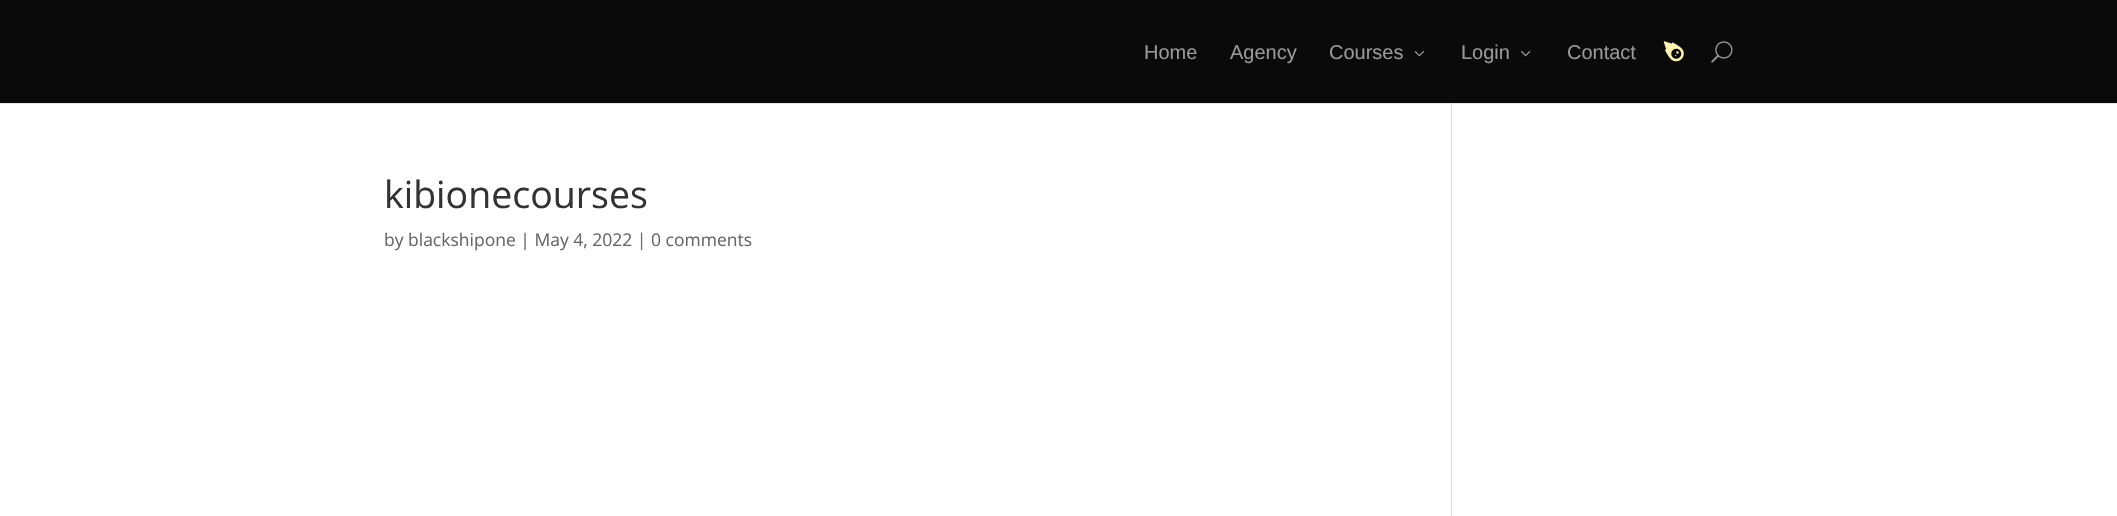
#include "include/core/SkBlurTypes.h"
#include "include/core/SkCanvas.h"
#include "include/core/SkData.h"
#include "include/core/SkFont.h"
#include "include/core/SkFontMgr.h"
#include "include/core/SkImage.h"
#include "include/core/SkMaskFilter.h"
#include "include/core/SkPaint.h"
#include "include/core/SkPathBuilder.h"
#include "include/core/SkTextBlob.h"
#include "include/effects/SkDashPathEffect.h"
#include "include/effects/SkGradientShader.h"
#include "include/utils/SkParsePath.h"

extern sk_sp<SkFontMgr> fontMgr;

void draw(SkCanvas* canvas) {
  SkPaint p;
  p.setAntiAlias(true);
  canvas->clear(SK_ColorWHITE);
  p.setColor(SkColorSetRGB(226, 226, 226));
  canvas->drawRect(SkRect::MakeLTRB(1451, 103, 1452, 516), p);
  p.setColor(SkColorSetARGB(26, 0, 0, 0));
  canvas->drawPath(SkPathBuilder().moveTo(0, 102).lineTo(0, 104).lineTo(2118, 104).lineTo(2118, 1).lineTo(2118, 102).close().detach(), p);
  p.setColor(SkColorSetRGB(10, 10, 10));
  canvas->drawRect(SkRect::MakeLTRB(0, 0, 2117, 103), p);
  canvas->drawImageRect(SkImages::DeferredFromEncodedData(SkData::MakeFromFileName("images/1.png")), SkRect::MakeLTRB(1414, 51, 1424, 57), SkSamplingOptions());
  canvas->drawImageRect(SkImages::DeferredFromEncodedData(SkData::MakeFromFileName("images/2.png")), SkRect::MakeLTRB(1521, 51, 1531, 57), SkSamplingOptions());
  canvas->drawImageRect(SkImages::DeferredFromEncodedData(SkData::MakeFromFileName("images/3.png")), SkRect::MakeLTRB(1663, 41, 1684, 62), SkSamplingOptions());
  canvas->drawImageRect(SkImages::DeferredFromEncodedData(SkData::MakeFromFileName("images/4.png")), SkRect::MakeLTRB(1711, 41, 1733, 63), SkSamplingOptions());
  SkFont font1(fontMgr->matchFamilyStyle("Liberation Sans", SkFontStyle::Normal()), 20);
  font1.setSubpixel(true);
  p.setColor(SkColorSetRGB(153, 153, 153));
  canvas->drawString("Home", 1144, 59, font1, p);
  canvas->drawString("Agency", 1230, 59, font1, p);
  canvas->drawString("Courses", 1329, 59, font1, p);
  canvas->drawString("Login", 1461, 59, font1, p);
  canvas->drawString("Contact", 1567, 59, font1, p);
  SkFont font2(fontMgr->matchFamilyStyle("Open Sans", SkFontStyle::Normal()), 37.5f);
  font2.setSubpixel(true);
  p.setColor(SkColorSetRGB(51, 51, 51));
  canvas->drawString("kibionecourses", 384, 208, font2, p);
  SkFont font3(fontMgr->matchFamilyStyle("Open Sans", SkFontStyle::Normal()), 17.5f);
  font3.setSubpixel(true);
  p.setColor(SkColorSetRGB(102, 102, 102));
  canvas->drawString("by blackshipone | May 4, 2022 | 0 comments", 384, 246, font3, p);
}
